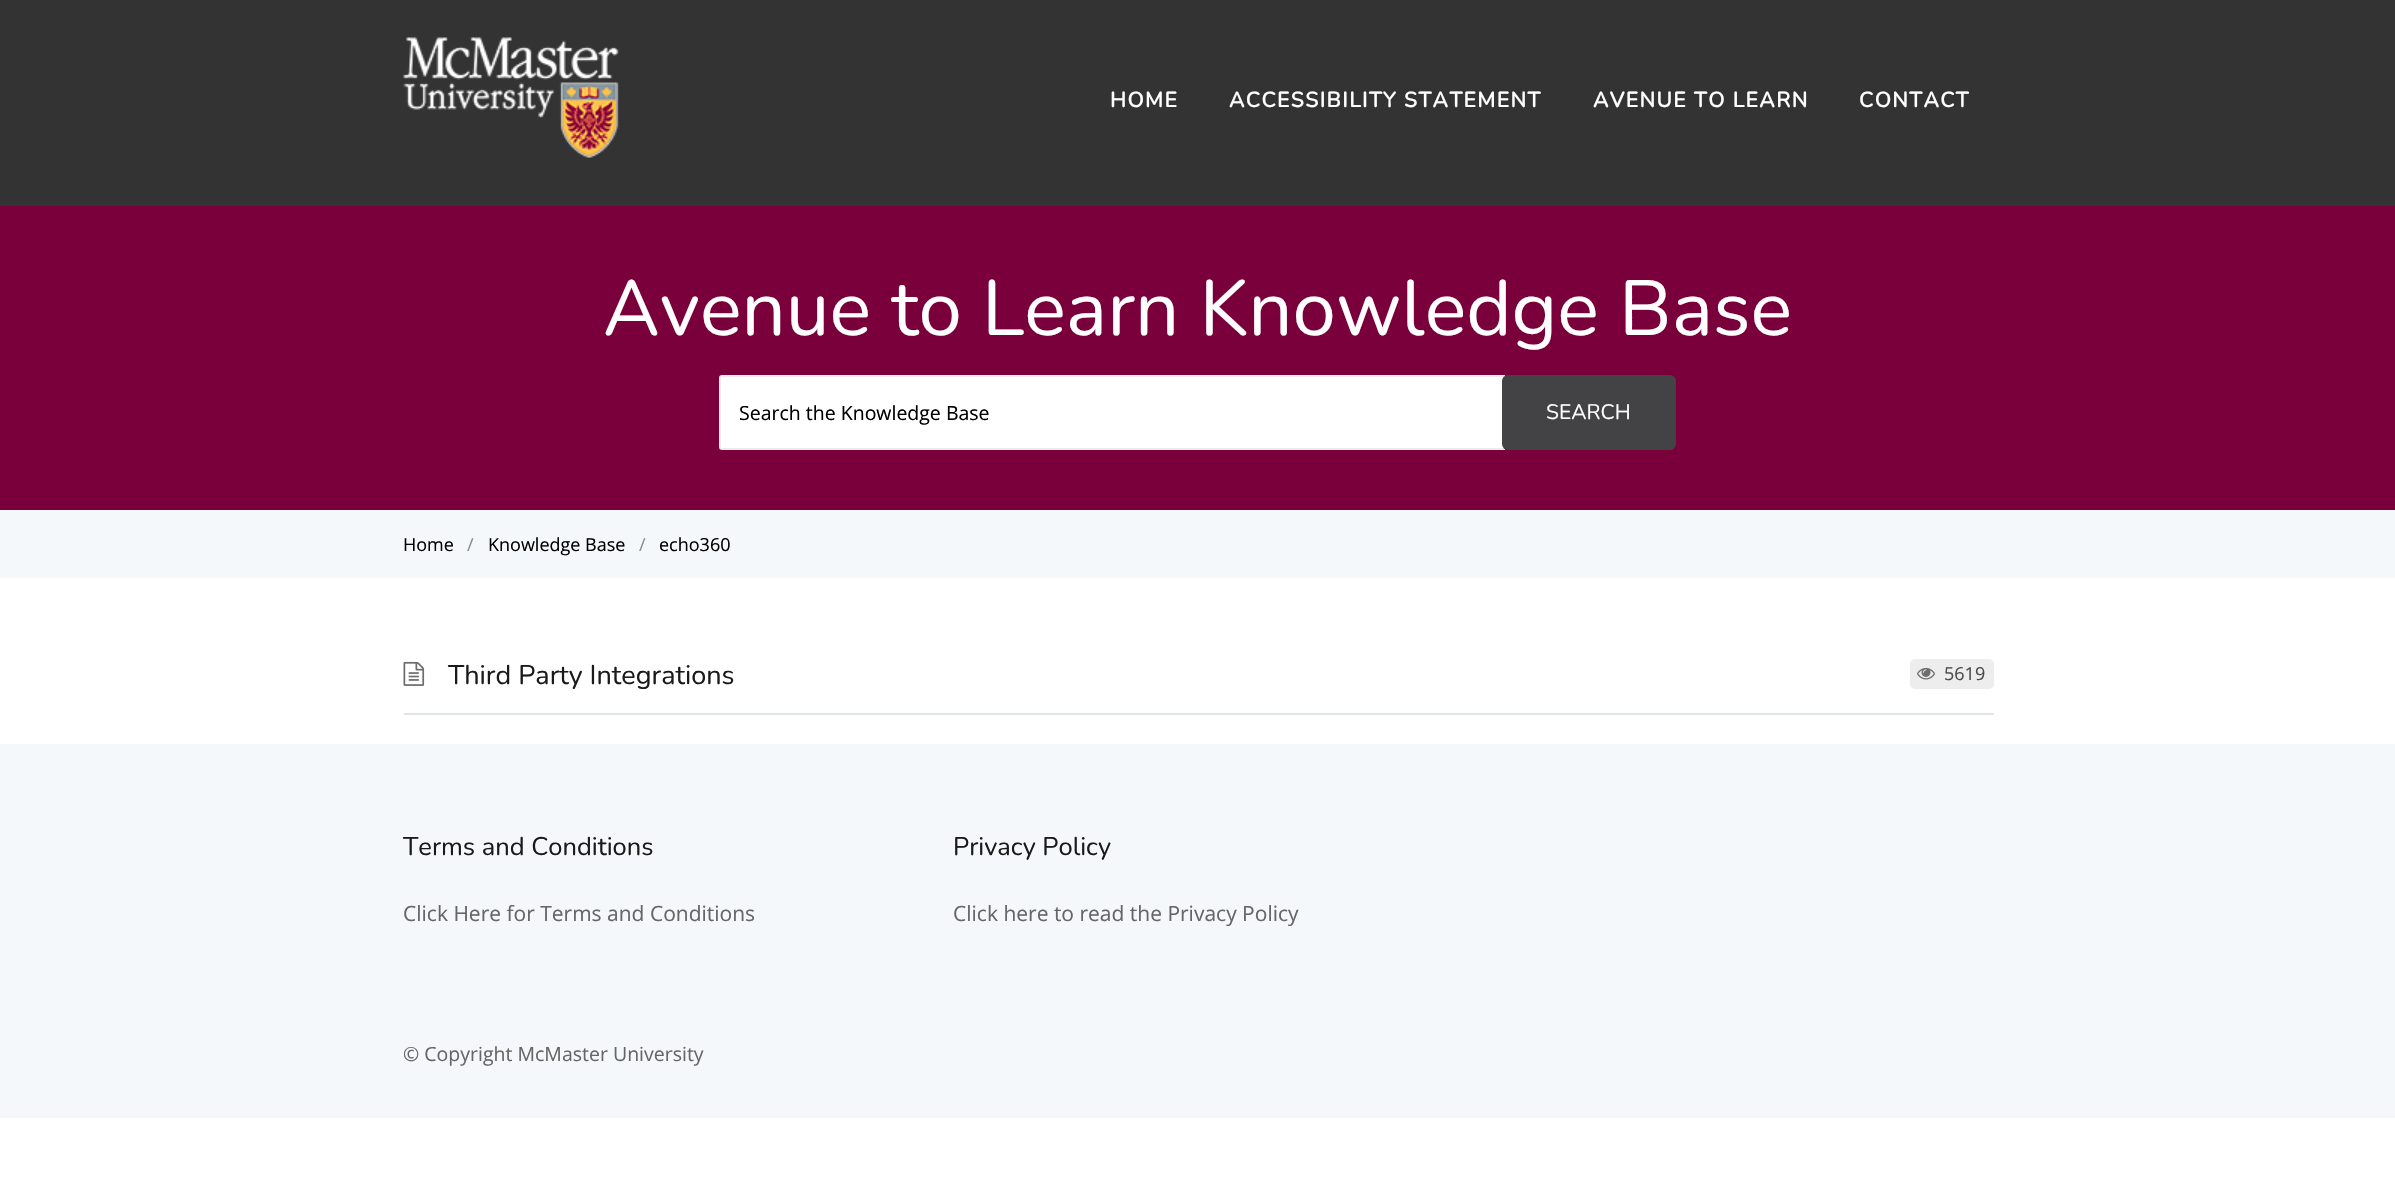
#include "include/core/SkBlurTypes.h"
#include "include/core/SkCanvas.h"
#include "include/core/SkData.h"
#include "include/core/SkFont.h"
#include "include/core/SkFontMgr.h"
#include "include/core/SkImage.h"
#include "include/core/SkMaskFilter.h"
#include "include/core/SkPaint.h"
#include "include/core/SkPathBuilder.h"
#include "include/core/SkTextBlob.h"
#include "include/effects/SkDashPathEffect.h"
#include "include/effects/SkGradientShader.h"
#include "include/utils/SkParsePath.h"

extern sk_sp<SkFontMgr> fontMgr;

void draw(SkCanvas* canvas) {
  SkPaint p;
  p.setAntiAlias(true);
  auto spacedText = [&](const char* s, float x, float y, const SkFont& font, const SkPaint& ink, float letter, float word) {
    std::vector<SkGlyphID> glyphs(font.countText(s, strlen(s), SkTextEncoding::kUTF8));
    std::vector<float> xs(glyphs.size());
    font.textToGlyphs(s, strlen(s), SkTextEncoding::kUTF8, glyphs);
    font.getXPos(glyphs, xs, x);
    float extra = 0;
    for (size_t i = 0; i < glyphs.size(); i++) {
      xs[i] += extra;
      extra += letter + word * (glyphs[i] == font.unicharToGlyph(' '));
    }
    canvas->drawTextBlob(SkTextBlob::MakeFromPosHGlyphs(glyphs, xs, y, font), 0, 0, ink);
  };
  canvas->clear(SK_ColorWHITE);
  p.setColor(SkColorSetRGB(51, 51, 51));
  canvas->drawRect(SkRect::MakeLTRB(0, 0, 2395, 206), p);
  canvas->drawImageRect(SkImages::DeferredFromEncodedData(SkData::MakeFromFileName("images/1.png")), SkRect::MakeLTRB(403, 37, 619, 158), SkSamplingOptions());
  p.setColor(SkColorSetRGB(122, 0, 60));
  canvas->drawRect(SkRect::MakeLTRB(0, 206, 2395, 510), p);
  p.setColor(SK_ColorWHITE);
  canvas->drawPath(SkPathBuilder().moveTo(722, 376).lineTo(1504, 376).lineTo(1504, 449).lineTo(722, 449).cubicTo(721, 449, 720, 448, 720, 447).lineTo(720, 378).cubicTo(720, 377, 721, 376, 722, 376).close().detach(), p);
  p.setStyle(SkPaint::kStroke_Style);
  p.setStrokeWidth(2);
  p.setColor(SkColorSetRGB(235, 235, 235));
  canvas->drawPath(SkPathBuilder().moveTo(722, 376).lineTo(1504, 376).lineTo(1504, 449).lineTo(722, 449).cubicTo(721, 449, 720, 448, 720, 447).lineTo(720, 378).cubicTo(720, 377, 721, 376, 722, 376).close().detach(), p);
  p.setStyle(SkPaint::kFill_Style);
  p.setColor(SkColorSetRGB(67, 67, 69));
  canvas->drawRoundRect(SkRect::MakeLTRB(1502, 375, 1676, 450), 6, 6, p);
  p.setColor(SkColorSetRGB(245, 248, 250));
  canvas->drawRect(SkRect::MakeLTRB(0, 510, 2395, 578), p);
  p.setColor(SkColorSetRGB(223, 228, 230));
  canvas->drawRect(SkRect::MakeLTRB(404, 713, 1994, 715), p);
  canvas->drawImageRect(SkImages::DeferredFromEncodedData(SkData::MakeFromFileName("images/2.png")), SkRect::MakeLTRB(403, 661, 425, 686), SkSamplingOptions());
  p.setColor(SkColorSetRGB(237, 237, 237));
  canvas->drawRoundRect(SkRect::MakeLTRB(1910, 659, 1994, 689), 5, 5, p);
  canvas->drawImageRect(SkImages::DeferredFromEncodedData(SkData::MakeFromFileName("images/3.png")), SkRect::MakeLTRB(1917, 667, 1935, 680), SkSamplingOptions());
  p.setColor(SkColorSetRGB(245, 248, 250));
  canvas->drawRect(SkRect::MakeLTRB(0, 744, 2395, 1118), p);
  SkFont font1(fontMgr->matchFamilyStyle("Nunito", SkFontStyle::Bold()), 21);
  font1.setSubpixel(true);
  p.setColor(SK_ColorWHITE);
  spacedText("HOME", 1110, 107, font1, p, 1.5f, 0);
  spacedText("ACCESSIBILITY STATEMENT", 1229, 107, font1, p, 1.5f, 0);
  spacedText("AVENUE TO LEARN", 1593, 107, font1, p, 1.5f, 0);
  spacedText("CONTACT", 1859, 107, font1, p, 1.5f, 0);
  SkFont font2(fontMgr->matchFamilyStyle("Nunito", SkFontStyle(200, SkFontStyle::kNormal_Width, SkFontStyle::kUpright_Slant)), 78);
  font2.setSubpixel(true);
  canvas->drawString("Avenue to Learn Knowledge Base", 603, 335, font2, p);
  SkFont font3(fontMgr->matchFamilyStyle("Open Sans", SkFontStyle::Normal()), 19.5f);
  font3.setSubpixel(true);
  p.setColor(SK_ColorBLACK);
  canvas->drawString("Search the Knowledge Base", 739, 420, font3, p);
  SkFont font4(fontMgr->matchFamilyStyle("Nunito", SkFontStyle(200, SkFontStyle::kNormal_Width, SkFontStyle::kUpright_Slant)), 21);
  font4.setSubpixel(true);
  p.setColor(SK_ColorWHITE);
  canvas->drawString("SEARCH", 1546, 419, font4, p);
  SkFont font5(fontMgr->matchFamilyStyle("Open Sans", SkFontStyle::Normal()), 18);
  font5.setSubpixel(true);
  p.setColor(SK_ColorBLACK);
  canvas->drawString("Home", 403, 551, font5, p);
  p.setColor(SkColorSetRGB(140, 140, 140));
  canvas->drawString("/", 467, 551, font5, p);
  p.setColor(SK_ColorBLACK);
  canvas->drawString("Knowledge Base", 488, 551, font5, p);
  p.setColor(SkColorSetRGB(140, 140, 140));
  canvas->drawString("/", 639, 551, font5, p);
  p.setColor(SK_ColorBLACK);
  canvas->drawString("echo360", 659, 551, font5, p);
  SkFont font6(fontMgr->matchFamilyStyle("Nunito", SkFontStyle(200, SkFontStyle::kNormal_Width, SkFontStyle::kUpright_Slant)), 27);
  font6.setSubpixel(true);
  p.setColor(SkColorSetRGB(26, 26, 26));
  canvas->drawString("Third Party Integrations", 448, 684, font6, p);
  p.setColor(SkColorSetRGB(75, 77, 77));
  canvas->drawString("5619", 1944, 680, font5, p);
  SkFont font7(fontMgr->matchFamilyStyle("Nunito", SkFontStyle(200, SkFontStyle::kNormal_Width, SkFontStyle::kUpright_Slant)), 25.5f);
  font7.setSubpixel(true);
  p.setColor(SkColorSetRGB(26, 26, 26));
  canvas->drawString("Terms and Conditions", 403, 855, font7, p);
  SkFont font8(fontMgr->matchFamilyStyle("Open Sans", SkFontStyle::Normal()), 21);
  font8.setSubpixel(true);
  p.setColor(SkColorSetRGB(102, 102, 102));
  canvas->drawString("Click Here for Terms and Conditions", 403, 921, font8, p);
  p.setColor(SkColorSetRGB(26, 26, 26));
  canvas->drawString("Privacy Policy", 953, 855, font7, p);
  p.setColor(SkColorSetRGB(102, 102, 102));
  canvas->drawString("Click here to read the Privacy Policy", 953, 921, font8, p);
  canvas->drawString("© Copyright McMaster University", 403, 1061, font3, p);
}
